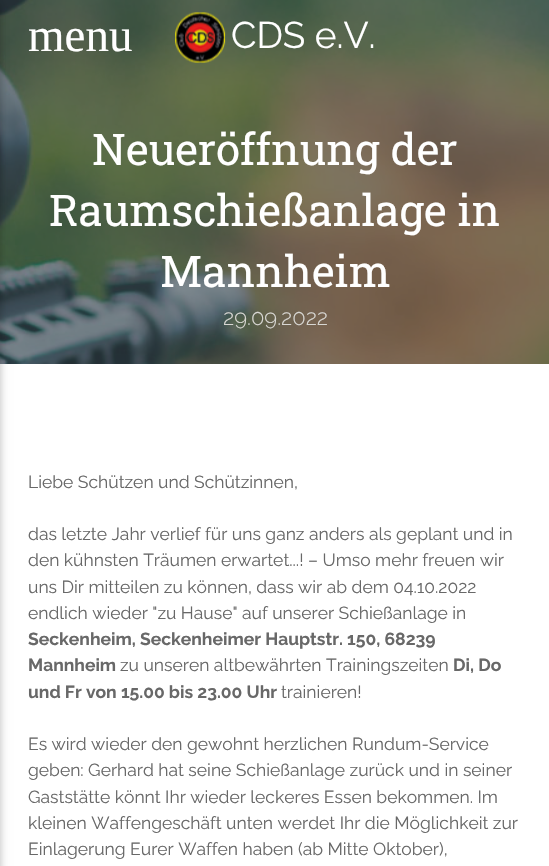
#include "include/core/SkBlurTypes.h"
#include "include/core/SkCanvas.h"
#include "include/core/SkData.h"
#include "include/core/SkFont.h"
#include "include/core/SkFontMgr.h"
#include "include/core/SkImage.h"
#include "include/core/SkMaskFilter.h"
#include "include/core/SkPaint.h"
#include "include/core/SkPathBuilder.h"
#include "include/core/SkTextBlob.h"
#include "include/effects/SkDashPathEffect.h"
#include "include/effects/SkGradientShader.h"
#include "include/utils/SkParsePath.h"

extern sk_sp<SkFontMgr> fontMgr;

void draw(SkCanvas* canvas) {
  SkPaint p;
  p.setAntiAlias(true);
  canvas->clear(SK_ColorWHITE);
  p.setColor(SkColorSetRGB(55, 71, 79));
  canvas->drawRect(SkRect::MakeLTRB(0, 0, 549, 364), p);
  canvas->drawImageRect(SkImages::DeferredFromEncodedData(SkData::MakeFromFileName("images/2.png")), SkRect::MakeLTRB(0, 0, 549, 364), SkSamplingOptions());
  p.setColor(SkColorSetARGB(31, 0, 0, 0));
  p.setMaskFilter(SkMaskFilter::MakeBlur(kNormal_SkBlurStyle, 6));
  canvas->drawRect(SkRect::MakeLTRB(-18, 3, 0, 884), p);
  p.setMaskFilter(nullptr);
  p.setColor(SkColorSetARGB(41, 0, 0, 0));
  p.setMaskFilter(SkMaskFilter::MakeBlur(kNormal_SkBlurStyle, 3));
  canvas->drawRect(SkRect::MakeLTRB(-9, 3, 0, 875), p);
  p.setMaskFilter(nullptr);
  canvas->drawImageRect(SkImages::DeferredFromEncodedData(SkData::MakeFromFileName("images/1.png")), SkRect::MakeLTRB(175, 12, 226, 63), SkSamplingOptions());
  SkFont font1(fontMgr->matchFamilyStyle("Liberation Serif", SkFontStyle::Normal()), 47);
  font1.setSubpixel(true);
  p.setColor(SK_ColorWHITE);
  canvas->drawString("menu", 28, 51, font1, p);
  SkFont font2(fontMgr->matchFamilyStyle("Raleway", SkFontStyle::Normal()), 37);
  font2.setSubpixel(true);
  canvas->drawString("CDS e.V.", 231, 48, font2, p);
  SkFont font3(fontMgr->matchFamilyStyle("Roboto Slab", SkFontStyle::Normal()), 43.75f);
  font3.setSubpixel(true);
  canvas->drawString("Neueröffnung der", 92, 165, font3, p);
  canvas->drawString("Raumschießanlage in", 49, 226, font3, p);
  canvas->drawString("Mannheim", 160, 287, font3, p);
  SkFont font4(fontMgr->matchFamilyStyle("Raleway", SkFontStyle(300, SkFontStyle::kNormal_Width, SkFontStyle::kUpright_Slant)), 22);
  font4.setSubpixel(true);
  p.setColor(SkColorSetRGB(216, 215, 211));
  canvas->drawString("29.09.2022", 223, 325, font4, p);
  SkFont font5(fontMgr->matchFamilyStyle("Raleway", SkFontStyle::Normal()), 17.5f);
  font5.setSubpixel(true);
  p.setColor(SkColorSetRGB(104, 104, 104));
  canvas->drawString("Liebe Schützen und Schützinnen,", 28, 488, font5, p);
  canvas->drawString("das letzte Jahr verlief für uns ganz anders als geplant und in", 28, 540, font5, p);
  canvas->drawString("den kühnsten Träumen erwartet...! – Umso mehr freuen wir", 28, 566, font5, p);
  canvas->drawString("uns Dir mitteilen zu können, dass wir ab dem 04.10.2022", 28, 593, font5, p);
  canvas->drawString("endlich wieder \"zu Hause\" auf unserer Schießanlage in", 28, 619, font5, p);
  SkFont font6(fontMgr->matchFamilyStyle("Raleway", SkFontStyle::Bold()), 17.5f);
  font6.setSubpixel(true);
  canvas->drawString("Seckenheim, Seckenheimer Hauptstr. 150, 68239", 28, 645, font6, p);
  canvas->drawString("Mannheim", 28, 671, font6, p);
  canvas->drawString("zu unseren altbewährten Trainingszeiten", 120, 671, font5, p);
  canvas->drawString("Di, Do", 453, 671, font6, p);
  canvas->drawString("und Fr von 15.00 bis 23.00 Uhr", 28, 698, font6, p);
  canvas->drawString("trainieren!", 281, 698, font5, p);
  canvas->drawString("Es wird wieder den gewohnt herzlichen Rundum-Service", 28, 750, font5, p);
  canvas->drawString("geben: Gerhard hat seine Schießanlage zurück und in seiner", 28, 776, font5, p);
  canvas->drawString("Gaststätte könnt Ihr wieder leckeres Essen bekommen. Im", 28, 803, font5, p);
  canvas->drawString("kleinen Waffengeschäft unten werdet Ihr die Möglichkeit zur", 28, 829, font5, p);
  canvas->drawString("Einlagerung Eurer Waffen haben (ab Mitte Oktober),", 28, 855, font5, p);
}
